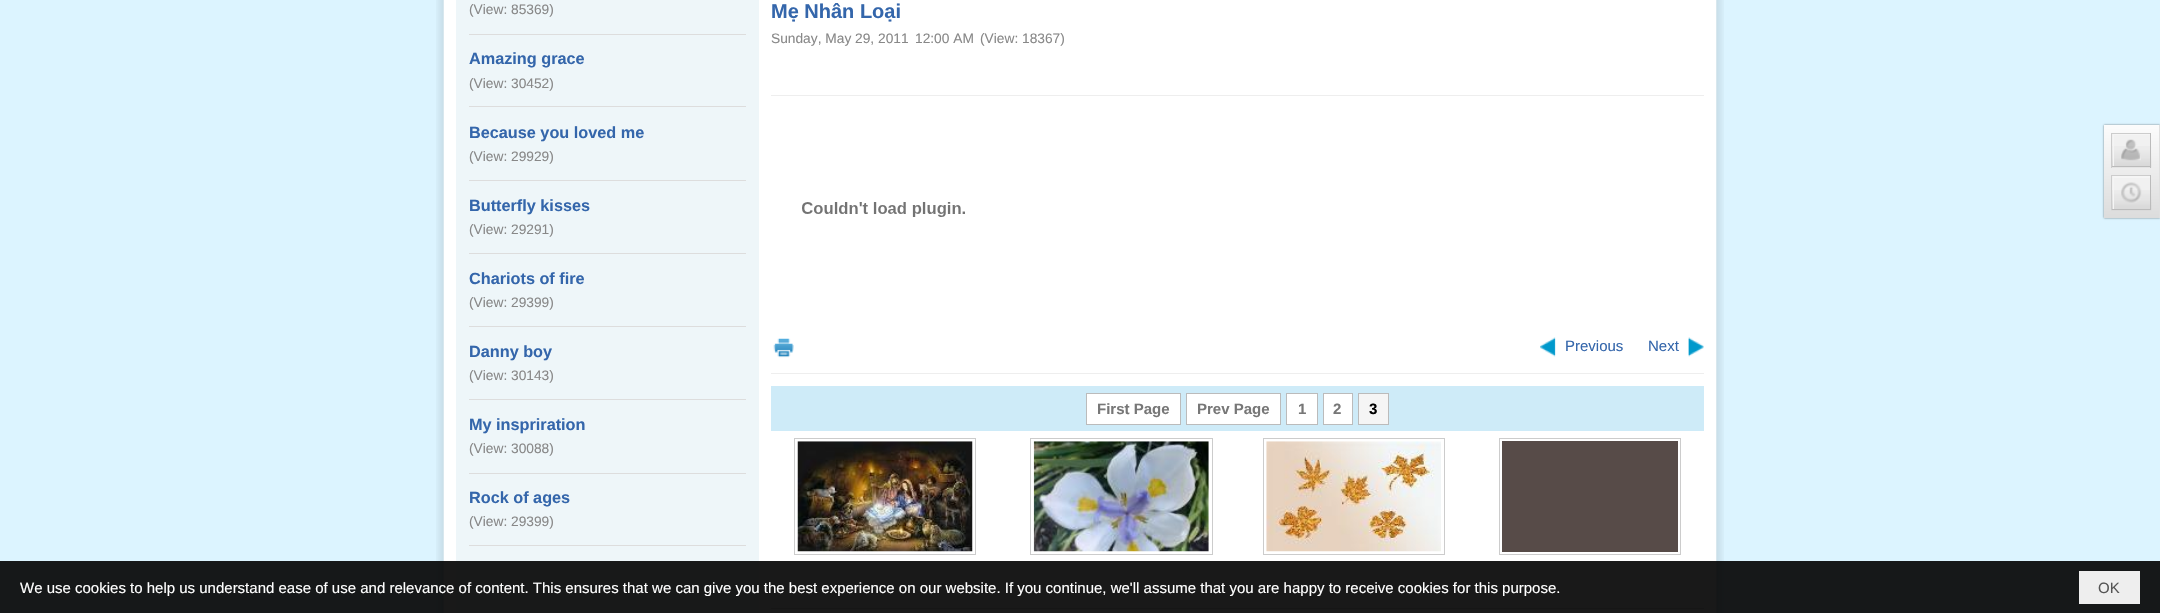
#include "include/core/SkBlurTypes.h"
#include "include/core/SkCanvas.h"
#include "include/core/SkData.h"
#include "include/core/SkFont.h"
#include "include/core/SkFontMgr.h"
#include "include/core/SkImage.h"
#include "include/core/SkMaskFilter.h"
#include "include/core/SkPaint.h"
#include "include/core/SkPathBuilder.h"
#include "include/core/SkTextBlob.h"
#include "include/effects/SkDashPathEffect.h"
#include "include/effects/SkGradientShader.h"
#include "include/utils/SkParsePath.h"

extern sk_sp<SkFontMgr> fontMgr;

void draw(SkCanvas* canvas) {
  SkPaint p;
  p.setAntiAlias(true);
  canvas->clear(SkColorSetRGB(220, 244, 255));
  canvas->drawImageRect(SkImages::DeferredFromEncodedData(SkData::MakeFromFileName("images/1.png")), SkRect::MakeLTRB(436, 0, 1724, 613), SkSamplingOptions());
  p.setColor(SkColorSetRGB(238, 246, 249));
  canvas->drawRect(SkRect::MakeLTRB(456, 0, 759, 613), p);
  p.setColor(SkColorSetRGB(221, 221, 221));
  canvas->drawRect(SkRect::MakeLTRB(469, 34, 746, 35), p);
  canvas->drawRect(SkRect::MakeLTRB(469, 106, 746, 107), p);
  canvas->drawRect(SkRect::MakeLTRB(469, 180, 746, 181), p);
  canvas->drawRect(SkRect::MakeLTRB(469, 253, 746, 254), p);
  canvas->drawRect(SkRect::MakeLTRB(469, 326, 746, 327), p);
  canvas->drawRect(SkRect::MakeLTRB(469, 399, 746, 400), p);
  canvas->drawRect(SkRect::MakeLTRB(469, 473, 746, 474), p);
  canvas->drawRect(SkRect::MakeLTRB(469, 545, 746, 546), p);
  p.setColor(SkColorSetRGB(238, 238, 238));
  canvas->drawRect(SkRect::MakeLTRB(771, 95, 1704, 96), p);
  canvas->drawImageRect(SkImages::DeferredFromEncodedData(SkData::MakeFromFileName("images/2.png")), SkRect::MakeLTRB(802, 202, 965, 217), SkSamplingOptions());
  canvas->drawImageRect(SkImages::DeferredFromEncodedData(SkData::MakeFromFileName("images/3.png")), SkRect::MakeLTRB(773, 338, 794, 358), SkSamplingOptions());
  canvas->drawImageRect(SkImages::DeferredFromEncodedData(SkData::MakeFromFileName("images/4.png")), SkRect::MakeLTRB(1540, 337, 1556, 357), SkSamplingOptions());
  canvas->drawImageRect(SkImages::DeferredFromEncodedData(SkData::MakeFromFileName("images/5.png")), SkRect::MakeLTRB(1688, 337, 1704, 357), SkSamplingOptions());
  canvas->drawRect(SkRect::MakeLTRB(771, 373, 1704, 374), p);
  p.setColor(SkColorSetRGB(206, 235, 248));
  canvas->drawRect(SkRect::MakeLTRB(771, 386, 1704, 431), p);
  p.setColor(SK_ColorWHITE);
  canvas->drawRect(SkRect::MakeLTRB(1086.5f, 393.5f, 1180.5f, 424.5f), p);
  p.setStyle(SkPaint::kStroke_Style);
  p.setStrokeWidth(1);
  p.setColor(SkColorSetRGB(187, 187, 187));
  canvas->drawRect(SkRect::MakeLTRB(1086.5f, 393.5f, 1180.5f, 424.5f), p);
  p.setStyle(SkPaint::kFill_Style);
  p.setColor(SK_ColorWHITE);
  canvas->drawRect(SkRect::MakeLTRB(1186.5f, 393.5f, 1280.5f, 424.5f), p);
  p.setStyle(SkPaint::kStroke_Style);
  p.setColor(SkColorSetRGB(187, 187, 187));
  canvas->drawRect(SkRect::MakeLTRB(1186.5f, 393.5f, 1280.5f, 424.5f), p);
  p.setStyle(SkPaint::kFill_Style);
  p.setColor(SK_ColorWHITE);
  canvas->drawRect(SkRect::MakeLTRB(1286.5f, 393.5f, 1317.5f, 424.5f), p);
  p.setStyle(SkPaint::kStroke_Style);
  p.setColor(SkColorSetRGB(187, 187, 187));
  canvas->drawRect(SkRect::MakeLTRB(1286.5f, 393.5f, 1317.5f, 424.5f), p);
  p.setStyle(SkPaint::kFill_Style);
  p.setColor(SK_ColorWHITE);
  canvas->drawRect(SkRect::MakeLTRB(1323.5f, 393.5f, 1352.5f, 424.5f), p);
  p.setStyle(SkPaint::kStroke_Style);
  p.setColor(SkColorSetRGB(187, 187, 187));
  canvas->drawRect(SkRect::MakeLTRB(1323.5f, 393.5f, 1352.5f, 424.5f), p);
  p.setStyle(SkPaint::kFill_Style);
  p.setColor(SkColorSetRGB(245, 245, 245));
  canvas->drawRect(SkRect::MakeLTRB(1358.5f, 393.5f, 1388.5f, 424.5f), p);
  p.setStyle(SkPaint::kStroke_Style);
  p.setColor(SkColorSetRGB(187, 187, 187));
  canvas->drawRect(SkRect::MakeLTRB(1358.5f, 393.5f, 1388.5f, 424.5f), p);
  p.setStyle(SkPaint::kFill_Style);
  p.setColor(SkColorSetRGB(221, 221, 221));
  canvas->drawRect(SkRect::MakeLTRB(771, 608, 1704, 609), p);
  p.setStyle(SkPaint::kStroke_Style);
  p.setColor(SkColorSetRGB(204, 204, 204));
  canvas->drawRect(SkRect::MakeLTRB(794.5f, 438.5f, 975.5f, 554.5f), p);
  canvas->drawImageRect(SkImages::DeferredFromEncodedData(SkData::MakeFromFileName("images/6.png")), SkRect::MakeLTRB(797, 441, 973, 552), SkSamplingOptions());
  canvas->drawRect(SkRect::MakeLTRB(1030.5f, 438.5f, 1212.5f, 554.5f), p);
  canvas->drawImageRect(SkImages::DeferredFromEncodedData(SkData::MakeFromFileName("images/7.png")), SkRect::MakeLTRB(1033, 441, 1209, 552), SkSamplingOptions());
  canvas->drawRect(SkRect::MakeLTRB(1263.5f, 438.5f, 1444.5f, 554.5f), p);
  canvas->drawImageRect(SkImages::DeferredFromEncodedData(SkData::MakeFromFileName("images/8.png")), SkRect::MakeLTRB(1266, 441, 1441, 552), SkSamplingOptions());
  canvas->drawRect(SkRect::MakeLTRB(1499.5f, 438.5f, 1680.5f, 554.5f), p);
  p.setStyle(SkPaint::kFill_Style);
  p.setColor(SkColorSetRGB(87, 75, 72));
  canvas->drawRect(SkRect::MakeLTRB(1502, 441, 1678, 552), p);
  p.setColor(SkColorSetARGB(128, 0, 0, 0));
  p.setMaskFilter(SkMaskFilter::MakeBlur(kNormal_SkBlurStyle, 1));
  canvas->drawRect(SkRect::MakeLTRB(2104, 125, 2160, 218), p);
  p.setMaskFilter(nullptr);
  {
    const SkColor colors[] = {SkColorSetRGB(252, 252, 252), SkColorSetRGB(220, 220, 220)};
    const float stops[] = {0, 1};
    const SkPoint ends[] = {{2131, 125}, {2131, 218}};
    p.setShader(SkGradientShader::MakeLinear(ends, colors, stops, 2, SkTileMode::kClamp));
    p.setAlpha(255);
  }
  canvas->drawRect(SkRect::MakeLTRB(2104, 125, 2159, 218), p);
  p.setShader(nullptr);
  p.setColor(SkColorSetRGB(224, 224, 224));
  canvas->drawRect(SkRect::MakeLTRB(2159, 125, 2160, 218), p);
  p.setColor(SkColorSetRGB(241, 241, 241));
  canvas->drawRect(SkRect::MakeLTRB(2112, 134, 2150, 168), p);
  canvas->drawImageRect(SkImages::DeferredFromEncodedData(SkData::MakeFromFileName("images/9.png")), SkRect::MakeLTRB(2112, 146, 2152, 168), SkSamplingOptions());
  canvas->save();
  canvas->clipRect(SkRect::MakeLTRB(2113, 134, 2150, 166));
  p.setColor(SkColorSetRGB(245, 245, 245));
  canvas->drawPath(SkPathBuilder(SkPathFillType::kEvenOdd).moveTo(1989, 10).lineTo(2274, 10).lineTo(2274, 290).lineTo(1989, 290).close().moveTo(2114, 135).lineTo(2151, 135).lineTo(2151, 168).lineTo(2114, 168).close().detach(), p);
  canvas->restore();
  p.setColor(SkColorSetRGB(204, 204, 204));
  canvas->drawRect(SkRect::MakeLTRB(2111, 133, 2151, 134), p);
  p.setColor(SkColorSetRGB(187, 187, 187));
  canvas->drawRect(SkRect::MakeLTRB(2150, 133, 2151, 168), p);
  canvas->drawRect(SkRect::MakeLTRB(2111, 166, 2151, 167), p);
  p.setColor(SkColorSetRGB(204, 204, 204));
  canvas->drawRect(SkRect::MakeLTRB(2111, 133, 2112, 168), p);
  canvas->drawImageRect(SkImages::DeferredFromEncodedData(SkData::MakeFromFileName("images/10.png")), SkRect::MakeLTRB(2121, 139, 2141, 161), SkSamplingOptions());
  p.setColor(SkColorSetRGB(241, 241, 241));
  canvas->drawRect(SkRect::MakeLTRB(2112, 176, 2150, 209), p);
  canvas->drawImageRect(SkImages::DeferredFromEncodedData(SkData::MakeFromFileName("images/11.png")), SkRect::MakeLTRB(2111, 190, 2152, 211), SkSamplingOptions());
  canvas->save();
  canvas->clipRect(SkRect::MakeLTRB(2113, 176, 2150, 209));
  p.setColor(SkColorSetRGB(245, 245, 245));
  canvas->drawPath(SkPathBuilder(SkPathFillType::kEvenOdd).moveTo(1989, 52).lineTo(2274, 52).lineTo(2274, 332).lineTo(1989, 332).close().moveTo(2114, 178).lineTo(2151, 178).lineTo(2151, 210).lineTo(2114, 210).close().detach(), p);
  canvas->restore();
  p.setColor(SkColorSetRGB(204, 204, 204));
  canvas->drawRect(SkRect::MakeLTRB(2111, 175, 2151, 176), p);
  p.setColor(SkColorSetRGB(187, 187, 187));
  canvas->drawRect(SkRect::MakeLTRB(2150, 175, 2151, 210), p);
  canvas->drawRect(SkRect::MakeLTRB(2111, 209, 2151, 210), p);
  p.setColor(SkColorSetRGB(204, 204, 204));
  canvas->drawRect(SkRect::MakeLTRB(2111, 175, 2112, 210), p);
  canvas->drawImageRect(SkImages::DeferredFromEncodedData(SkData::MakeFromFileName("images/12.png")), SkRect::MakeLTRB(2121, 182, 2142, 203), SkSamplingOptions());
  p.setColor(SkColorSetARGB(230, 0, 0, 0));
  canvas->drawRect(SkRect::MakeLTRB(0, 561, 2160, 613), p);
  p.setColor(SkColorSetRGB(238, 238, 238));
  canvas->drawRect(SkRect::MakeLTRB(2079, 571, 2140, 604), p);
  SkFont font1(fontMgr->matchFamilyStyle("Liberation Sans", SkFontStyle::Normal()), 13.75f);
  font1.setSubpixel(true);
  p.setColor(SkColorSetRGB(136, 136, 136));
  canvas->drawString("(View: 85369)", 469, 14, font1, p);
  SkFont font2(fontMgr->matchFamilyStyle("Liberation Sans", SkFontStyle::Bold()), 16.25f);
  font2.setSubpixel(true);
  p.setColor(SkColorSetRGB(52, 102, 171));
  canvas->drawString("Amazing grace", 469, 64, font2, p);
  p.setColor(SkColorSetRGB(136, 136, 136));
  canvas->drawString("(View: 30452)", 469, 88, font1, p);
  p.setColor(SkColorSetRGB(52, 102, 171));
  canvas->drawString("Because you loved me", 469, 138, font2, p);
  p.setColor(SkColorSetRGB(136, 136, 136));
  canvas->drawString("(View: 29929)", 469, 161, font1, p);
  p.setColor(SkColorSetRGB(52, 102, 171));
  canvas->drawString("Butterfly kisses", 469, 211, font2, p);
  p.setColor(SkColorSetRGB(136, 136, 136));
  canvas->drawString("(View: 29291)", 469, 234, font1, p);
  p.setColor(SkColorSetRGB(52, 102, 171));
  canvas->drawString("Chariots of fire", 469, 284, font2, p);
  p.setColor(SkColorSetRGB(136, 136, 136));
  canvas->drawString("(View: 29399)", 469, 307, font1, p);
  p.setColor(SkColorSetRGB(52, 102, 171));
  canvas->drawString("Danny boy", 469, 357, font2, p);
  p.setColor(SkColorSetRGB(136, 136, 136));
  canvas->drawString("(View: 30143)", 469, 380, font1, p);
  p.setColor(SkColorSetRGB(52, 102, 171));
  canvas->drawString("My inspriration", 469, 430, font2, p);
  p.setColor(SkColorSetRGB(136, 136, 136));
  canvas->drawString("(View: 30088)", 469, 453, font1, p);
  p.setColor(SkColorSetRGB(52, 102, 171));
  canvas->drawString("Rock of ages", 469, 503, font2, p);
  p.setColor(SkColorSetRGB(136, 136, 136));
  canvas->drawString("(View: 29399)", 469, 526, font1, p);
  SkFont font3(fontMgr->matchFamilyStyle("Liberation Sans", SkFontStyle::Bold()), 20);
  font3.setSubpixel(true);
  p.setColor(SkColorSetRGB(52, 102, 171));
  canvas->drawString("Mẹ Nhân Loại", 771, 18, font3, p);
  p.setColor(SkColorSetRGB(136, 136, 136));
  canvas->drawString("Sunday, May 29, 2011", 771, 43, font1, p);
  canvas->drawString("12:00 AM", 915, 43, font1, p);
  canvas->drawString("(View: 18367)", 980, 43, font1, p);
  SkFont font4(fontMgr->matchFamilyStyle("Liberation Sans", SkFontStyle::Normal()), 15);
  font4.setSubpixel(true);
  p.setColor(SkColorSetRGB(52, 102, 171));
  canvas->drawString("Previous", 1565, 351, font4, p);
  canvas->drawString("Next", 1648, 351, font4, p);
  SkFont font5(fontMgr->matchFamilyStyle("Liberation Sans", SkFontStyle::Bold()), 15);
  font5.setSubpixel(true);
  p.setColor(SkColorSetRGB(119, 119, 119));
  canvas->drawString("First Page", 1097, 414, font5, p);
  canvas->drawString("Prev Page", 1197, 414, font5, p);
  canvas->drawString("1", 1298, 414, font5, p);
  canvas->drawString("2", 1333, 414, font5, p);
  p.setColor(SK_ColorBLACK);
  canvas->drawString("3", 1369, 414, font5, p);
  p.setColor(SK_ColorWHITE);
  canvas->drawString("We use cookies to help us understand ease of use and relevance of content. This ensures that we can give you the best experience on our website. If you continue, we'll assume that you are happy to receive cookies for this purpose.", 20, 593, font4, p);
  p.setColor(SkColorSetRGB(85, 85, 85));
  canvas->drawString("OK", 2098, 593, font4, p);
}
